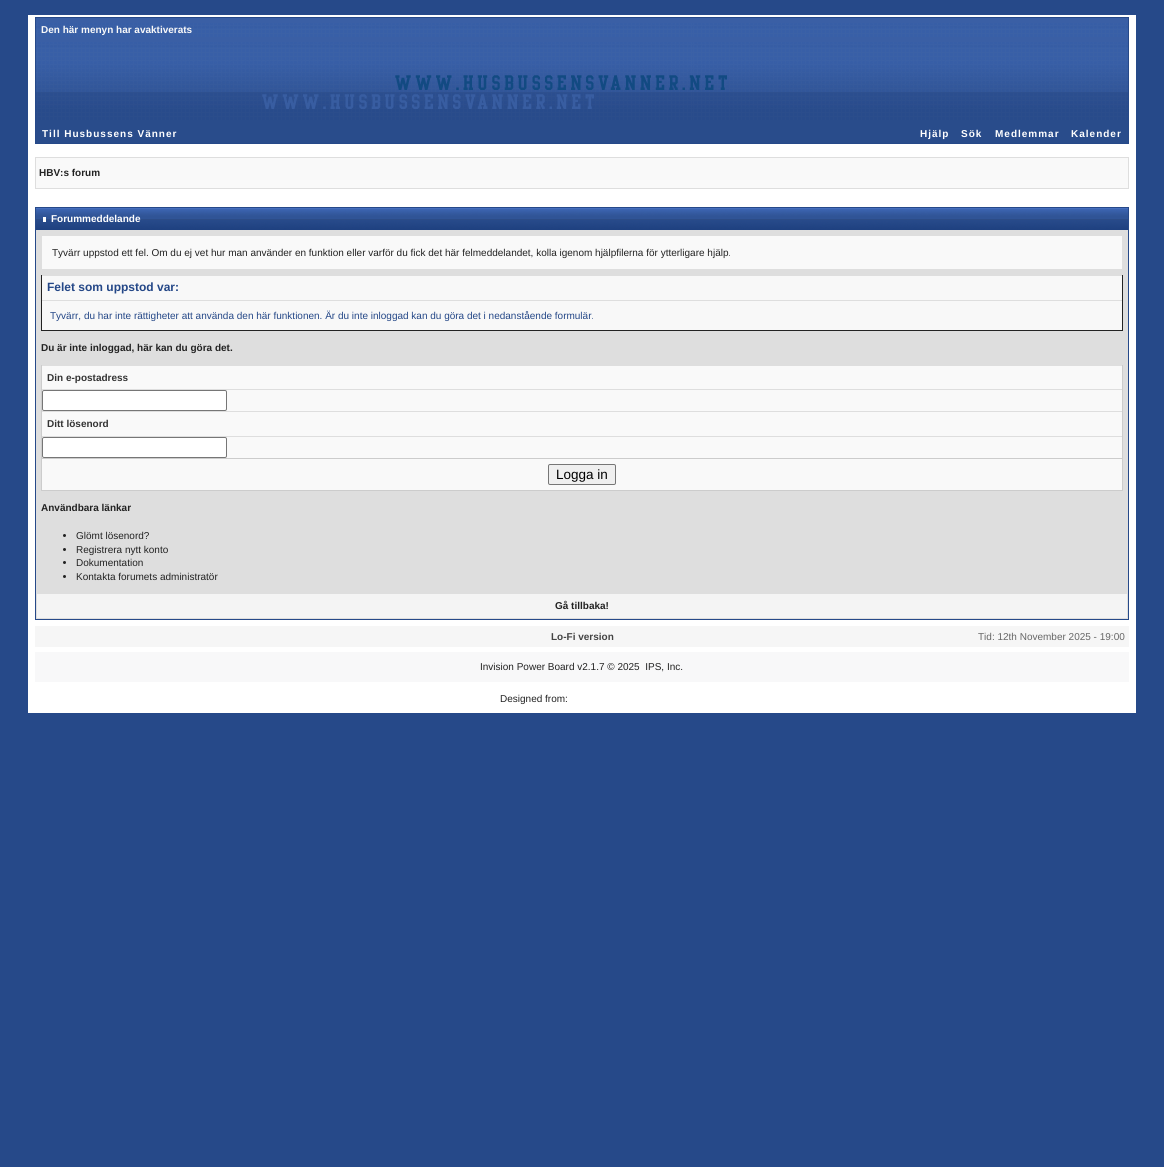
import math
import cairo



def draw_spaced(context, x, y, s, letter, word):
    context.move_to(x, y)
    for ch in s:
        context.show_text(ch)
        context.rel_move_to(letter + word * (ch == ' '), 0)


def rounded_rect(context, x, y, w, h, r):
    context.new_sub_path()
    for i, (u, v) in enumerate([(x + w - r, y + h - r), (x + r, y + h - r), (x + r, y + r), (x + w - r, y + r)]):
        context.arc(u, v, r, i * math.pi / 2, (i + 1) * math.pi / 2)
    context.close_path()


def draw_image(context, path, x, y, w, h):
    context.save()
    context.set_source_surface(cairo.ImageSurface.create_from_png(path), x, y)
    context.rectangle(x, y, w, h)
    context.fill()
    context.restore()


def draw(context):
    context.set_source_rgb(38 / 255, 73 / 255, 137 / 255)
    context.paint()
    context.set_source_rgb(1, 1, 1)
    context.rectangle(28, 15, 1108, 698)
    context.fill()
    context.set_source_rgb(58 / 255, 95 / 255, 165 / 255)
    context.rectangle(36, 18, 1092, 24)
    context.fill()
    context.rectangle(35.5, 17.5, 1093, 126)
    context.set_source_rgb(38 / 255, 73 / 255, 137 / 255)
    context.set_line_width(1)
    context.stroke()
    draw_image(context, "images/1.png", 36, 23, 1092, 14)
    draw_image(context, "images/2.png", 36, 42, 1092, 78)
    context.set_source_rgb(41 / 255, 76 / 255, 139 / 255)
    context.rectangle(36, 120, 1092, 23)
    context.fill()
    context.set_source_rgb(249 / 255, 249 / 255, 249 / 255)
    context.rectangle(35.5, 157.5, 1093, 31)
    context.fill_preserve()
    context.set_source_rgb(222 / 255, 222 / 255, 222 / 255)
    context.stroke()
    context.rectangle(36, 230, 1092, 363)
    context.fill()
    context.rectangle(35.5, 207.5, 1093, 412)
    context.set_source_rgb(38 / 255, 73 / 255, 137 / 255)
    context.stroke()
    draw_image(context, "images/3.png", 36, 208, 1092, 22)
    context.set_source_rgb(1, 1, 1)
    context.rectangle(43, 217, 3, 5)
    context.fill()
    context.set_source_rgb(249 / 255, 249 / 255, 249 / 255)
    context.rectangle(42, 236, 1080, 33)
    context.fill()
    context.set_source_rgb(248 / 255, 248 / 255, 248 / 255)
    context.rectangle(42, 276, 1080, 54)
    context.fill()
    context.set_source_rgb(34 / 255, 34 / 255, 34 / 255)
    context.rectangle(1122, 275, 1, 56)
    context.fill()
    context.rectangle(41, 330, 1082, 1)
    context.fill()
    context.rectangle(41, 275, 1, 56)
    context.fill()
    context.set_source_rgb(222 / 255, 222 / 255, 222 / 255)
    context.rectangle(42, 300, 1080, 1)
    context.fill()
    context.set_source_rgb(249 / 255, 249 / 255, 249 / 255)
    context.rectangle(42, 366, 1080, 124)
    context.fill()
    context.set_source_rgb(204 / 255, 204 / 255, 204 / 255)
    context.rectangle(1122, 365, 1, 126)
    context.fill()
    context.rectangle(41, 490, 1082, 1)
    context.fill()
    context.rectangle(41, 365, 1, 126)
    context.fill()
    context.set_source_rgb(222 / 255, 222 / 255, 222 / 255)
    context.rectangle(42, 389, 1080, 1)
    context.fill()
    context.set_source_rgb(1, 1, 1)
    rounded_rect(context, 42.5, 390.5, 184, 20, 1.5)
    context.fill_preserve()
    context.set_source_rgb(118 / 255, 118 / 255, 118 / 255)
    context.stroke()
    context.set_source_rgb(222 / 255, 222 / 255, 222 / 255)
    context.rectangle(42, 411, 1080, 1)
    context.fill()
    context.rectangle(42, 436, 1080, 1)
    context.fill()
    context.set_source_rgb(1, 1, 1)
    rounded_rect(context, 42.5, 437.5, 184, 20, 1.5)
    context.fill_preserve()
    context.set_source_rgb(118 / 255, 118 / 255, 118 / 255)
    context.stroke()
    context.set_source_rgb(204 / 255, 204 / 255, 204 / 255)
    context.rectangle(42, 458, 1080, 1)
    context.fill()
    context.set_source_rgb(239 / 255, 239 / 255, 239 / 255)
    rounded_rect(context, 548.5, 464.5, 67, 20, 1.5)
    context.fill_preserve()
    context.set_source_rgb(118 / 255, 118 / 255, 118 / 255)
    context.stroke()
    context.set_source_rgb(34 / 255, 34 / 255, 34 / 255)
    context.arc(64.5, 535.5, 1.5, 0, 2 * math.pi)
    context.fill()
    context.arc(64.5, 549.5, 1.5, 0, 2 * math.pi)
    context.fill()
    context.arc(64.5, 562.5, 1.5, 0, 2 * math.pi)
    context.fill()
    context.arc(64.5, 576.5, 1.5, 0, 2 * math.pi)
    context.fill()
    context.set_source_rgb(244 / 255, 244 / 255, 244 / 255)
    context.rectangle(36.5, 593.5, 1091, 25)
    context.fill_preserve()
    context.set_source_rgb(222 / 255, 222 / 255, 222 / 255)
    context.stroke()
    context.set_source_rgb(246 / 255, 246 / 255, 246 / 255)
    context.rectangle(35, 626, 1094, 21)
    context.fill()
    context.set_source_rgb(248 / 255, 248 / 255, 249 / 255)
    context.rectangle(35, 652, 1094, 30)
    context.fill()
    context.select_font_face("Liberation Sans", cairo.FontSlant.NORMAL, cairo.FontWeight.BOLD)
    context.set_font_size(10)
    context.set_source_rgb(249 / 255, 249 / 255, 249 / 255)
    context.move_to(41, 33)
    context.show_text("Den här menyn har avaktiverats")
    context.set_source_rgb(1, 1, 1)
    draw_spaced(context, 42, 137, "Till Husbussens Vänner", 1, 0)
    draw_spaced(context, 920, 137, "Hjälp", 1, 0)
    draw_spaced(context, 961, 137, "Sök", 1, 0)
    draw_spaced(context, 995, 137, "Medlemmar", 1, 0)
    draw_spaced(context, 1071, 137, "Kalender", 1, 0)
    context.set_source_rgb(34 / 255, 34 / 255, 34 / 255)
    context.move_to(39, 176)
    context.show_text("HBV:s forum")
    context.set_source_rgb(1, 1, 1)
    context.move_to(51, 222)
    context.show_text("Forummeddelande")
    context.select_font_face("Liberation Sans")
    context.set_source_rgb(34 / 255, 34 / 255, 34 / 255)
    context.move_to(52, 256)
    context.show_text("Tyvärr uppstod ett fel. Om du ej vet hur man använder en funktion eller varför du fick det här felmeddelandet, kolla igenom hjälpfilerna för ytterligare hjälp.")
    context.select_font_face("Liberation Sans", cairo.FontSlant.NORMAL, cairo.FontWeight.BOLD)
    context.set_font_size(12)
    context.set_source_rgb(36 / 255, 71 / 255, 135 / 255)
    context.move_to(47, 291)
    context.show_text("Felet som uppstod var:")
    context.select_font_face("Liberation Sans")
    context.set_font_size(10)
    context.move_to(50, 319)
    context.show_text("Tyvärr, du har inte rättigheter att använda den här funktionen. Är du inte inloggad kan du göra det i nedanstående formulär.")
    context.select_font_face("Liberation Sans", cairo.FontSlant.NORMAL, cairo.FontWeight.BOLD)
    context.set_source_rgb(34 / 255, 34 / 255, 34 / 255)
    context.move_to(41, 351)
    context.show_text("Du är inte inloggad, här kan du göra det.")
    context.set_source_rgb(51 / 255, 51 / 255, 51 / 255)
    context.move_to(47, 381)
    context.show_text("Din e-postadress")
    context.move_to(47, 427)
    context.show_text("Ditt lösenord")
    context.select_font_face("Liberation Sans")
    context.set_font_size(13.5)
    context.set_source_rgb(0, 0, 0)
    context.move_to(556, 479)
    context.show_text("Logga in")
    context.select_font_face("Liberation Sans", cairo.FontSlant.NORMAL, cairo.FontWeight.BOLD)
    context.set_font_size(10)
    context.set_source_rgb(34 / 255, 34 / 255, 34 / 255)
    context.move_to(41, 511)
    context.show_text("Användbara länkar")
    context.select_font_face("Liberation Sans")
    context.move_to(76, 539)
    context.show_text("Glömt lösenord?")
    context.move_to(76, 553)
    context.show_text("Registrera nytt konto")
    context.move_to(76, 566)
    context.show_text("Dokumentation")
    context.move_to(76, 580)
    context.show_text("Kontakta forumets administratör")
    context.select_font_face("Liberation Sans", cairo.FontSlant.NORMAL, cairo.FontWeight.BOLD)
    context.move_to(555, 609)
    context.show_text("Gå tillbaka!")
    context.set_source_rgb(68 / 255, 68 / 255, 68 / 255)
    context.move_to(551, 640)
    context.show_text("Lo-Fi version")
    context.select_font_face("Liberation Sans")
    context.set_source_rgb(102 / 255, 102 / 255, 102 / 255)
    context.move_to(978, 640)
    context.show_text("Tid: 12th November 2025 - 19:00")
    context.set_source_rgb(34 / 255, 34 / 255, 34 / 255)
    context.move_to(480, 670)
    context.show_text("Invision Power Board v2.1.7 © 2025  IPS, Inc.")
    context.move_to(500, 702)
    context.show_text("Designed from:")


surface = cairo.ImageSurface(cairo.Format.RGB24, 1164, 1167)
context = cairo.Context(surface)
options = cairo.FontOptions()
options.set_hint_metrics(cairo.HintMetrics.OFF)
options.set_hint_style(cairo.HintStyle.NONE)
context.set_font_options(options)
context.set_miter_limit(4)
draw(context)
surface.write_to_png("out.png")
